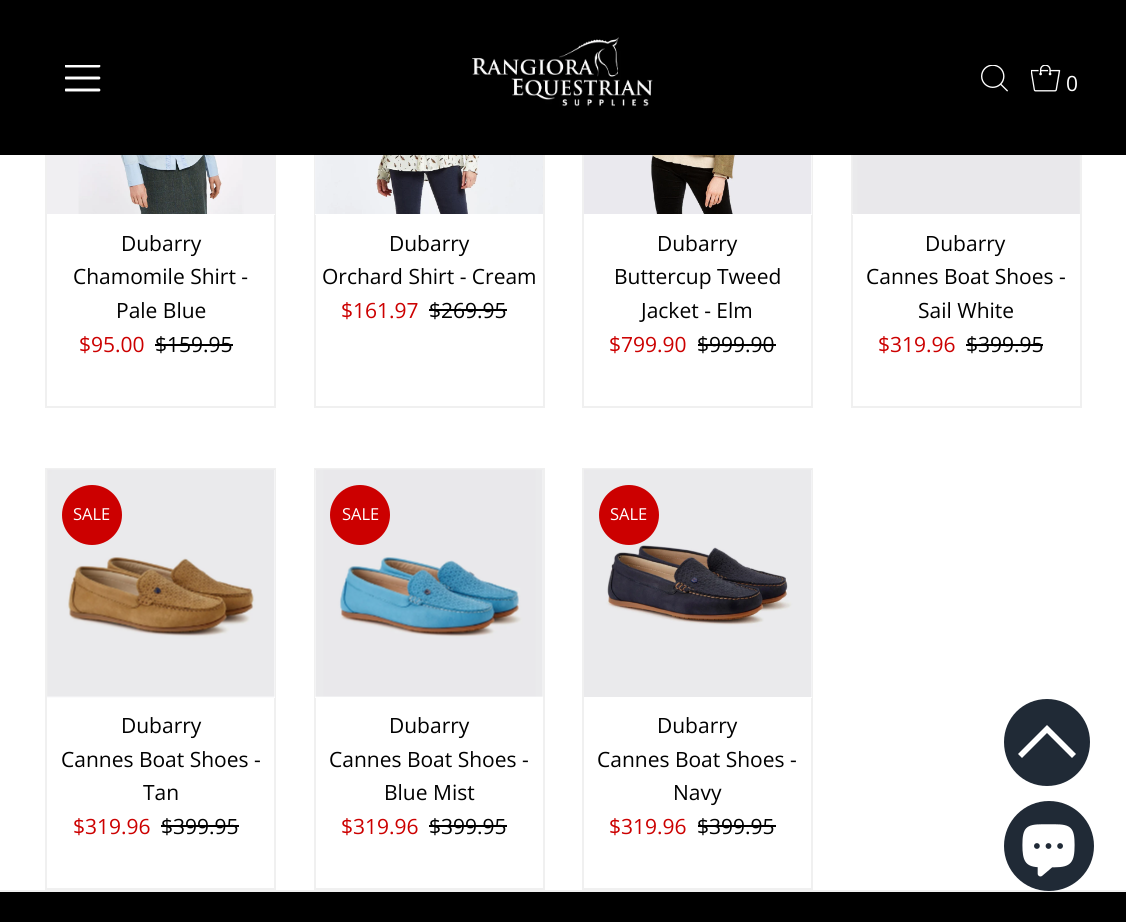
import math
import cairo



def draw_image(context, path, x, y, w, h):
    context.save()
    context.set_source_surface(cairo.ImageSurface.create_from_png(path), x, y)
    context.rectangle(x, y, w, h)
    context.fill()
    context.restore()


def draw(context):
    context.set_source_rgb(1, 1, 1)
    context.paint()
    context.rectangle(46, -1, 229, 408)
    context.set_source_rgb(240 / 255, 240 / 255, 240 / 255)
    context.stroke()
    context.rectangle(315, -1, 229, 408)
    context.stroke()
    context.rectangle(583, -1, 229, 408)
    context.stroke()
    context.rectangle(852, -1, 229, 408)
    context.stroke()
    context.set_source_rgb(0, 0, 0)
    context.rectangle(0, 0, 1126, 155)
    context.fill()
    draw_image(context, "images/1.png", 65, 65, 36, 27)
    draw_image(context, "images/2.png", 472, 37, 181, 70)
    draw_image(context, "images/3.png", 981, 65, 27, 27)
    draw_image(context, "images/4.png", 1031, 65, 30, 27)
    context.set_source_rgb(1, 1, 1)
    context.rectangle(274, 214, 1, 1)
    context.fill()
    draw_image(context, "images/5.png", 47, 155, 228, 59)
    context.set_source_rgb(0, 0, 0)
    context.rectangle(155, 344, 78, 2)
    context.fill()
    context.set_source_rgb(1, 1, 1)
    context.rectangle(315, 155, 1, 60)
    context.fill()
    draw_image(context, "images/6.png", 315, 155, 228, 59)
    context.set_source_rgb(0, 0, 0)
    context.rectangle(429, 309, 78, 2)
    context.fill()
    context.set_source_rgb(1, 1, 1)
    context.rectangle(811, 155, 1, 60)
    context.fill()
    draw_image(context, "images/7.png", 584, 155, 228, 59)
    context.set_source_rgb(0, 0, 0)
    context.rectangle(698, 344, 78, 2)
    context.fill()
    context.set_source_rgb(1, 1, 1)
    context.rectangle(852, 155, 1, 60)
    context.fill()
    draw_image(context, "images/8.png", 852, 155, 228, 59)
    context.set_source_rgb(0, 0, 0)
    context.rectangle(966, 344, 77, 2)
    context.fill()
    context.rectangle(46, 469, 229, 420)
    context.set_source_rgb(240 / 255, 240 / 255, 240 / 255)
    context.stroke()
    context.set_source_rgb(1, 1, 1)
    context.rectangle(274, 470, 1, 228)
    context.fill()
    draw_image(context, "images/9.png", 47, 469, 228, 229)
    context.set_source_rgb(204 / 255, 0, 0)
    context.arc(92, 515, 30, 0, 2 * math.pi)
    context.fill()
    context.set_source_rgb(0, 0, 0)
    context.rectangle(161, 825, 78, 2)
    context.fill()
    context.rectangle(315, 469, 229, 420)
    context.set_source_rgb(240 / 255, 240 / 255, 240 / 255)
    context.stroke()
    context.set_source_rgb(1, 1, 1)
    context.rectangle(315, 470, 1, 228)
    context.fill()
    draw_image(context, "images/10.png", 315, 469, 228, 228)
    context.set_source_rgb(204 / 255, 0, 0)
    context.arc(360, 515, 30, 0, 2 * math.pi)
    context.fill()
    context.set_source_rgb(0, 0, 0)
    context.rectangle(429, 825, 78, 2)
    context.fill()
    context.rectangle(583, 469, 229, 420)
    context.set_source_rgb(240 / 255, 240 / 255, 240 / 255)
    context.stroke()
    context.set_source_rgb(1, 1, 1)
    context.rectangle(811, 470, 1, 228)
    context.fill()
    draw_image(context, "images/11.png", 584, 469, 228, 228)
    context.set_source_rgb(204 / 255, 0, 0)
    context.arc(629, 515, 30, 0, 2 * math.pi)
    context.fill()
    context.set_source_rgb(0, 0, 0)
    context.rectangle(698, 825, 78, 2)
    context.fill()
    context.rectangle(0, 892, 1126, 30)
    context.fill()
    context.set_source_rgb(240 / 255, 240 / 255, 240 / 255)
    context.rectangle(0, 890, 1126, 2)
    context.fill()
    context.set_source_rgb(32 / 255, 42 / 255, 54 / 255)
    context.set_fill_rule(cairo.FillRule.EVEN_ODD)
    context.new_path()
    context.move_to(1047, 699)
    context.curve_to(1023, 699, 1004, 718, 1004, 742)
    context.curve_to(1004, 767, 1023, 786, 1047, 786)
    context.curve_to(1071, 786, 1090, 767, 1090, 742)
    context.curve_to(1090, 718, 1071, 699, 1047, 699)
    context.close_path()
    context.move_to(1072, 758)
    context.line_to(1047, 733)
    context.line_to(1022, 758)
    context.line_to(1018, 754)
    context.line_to(1047, 725)
    context.line_to(1076, 754)
    context.close_path()
    context.fill()
    context.arc(1049, 846, 45, 0, 2 * math.pi)
    context.fill()
    draw_image(context, "images/12.png", 1022, 824, 53, 53)
    context.select_font_face("Open Sans")
    context.set_font_size(21)
    context.set_source_rgb(1, 1, 1)
    context.move_to(1066, 91)
    context.show_text("0")
    context.set_source_rgb(0, 0, 0)
    context.move_to(121, 251)
    context.show_text("Dubarry")
    context.move_to(73, 284)
    context.show_text("Chamomile Shirt -")
    context.move_to(116, 318)
    context.show_text("Pale Blue")
    context.set_source_rgb(204 / 255, 0, 0)
    context.move_to(79, 352)
    context.show_text("$95.00")
    context.set_source_rgb(0, 0, 0)
    context.move_to(155, 352)
    context.show_text("$159.95")
    context.move_to(389, 251)
    context.show_text("Dubarry")
    context.move_to(322, 284)
    context.show_text("Orchard Shirt - Cream")
    context.set_source_rgb(204 / 255, 0, 0)
    context.move_to(341, 318)
    context.show_text("$161.97")
    context.set_source_rgb(0, 0, 0)
    context.move_to(429, 318)
    context.show_text("$269.95")
    context.move_to(657, 251)
    context.show_text("Dubarry")
    context.move_to(614, 284)
    context.show_text("Buttercup Tweed")
    context.move_to(641, 318)
    context.show_text("Jacket - Elm")
    context.set_source_rgb(204 / 255, 0, 0)
    context.move_to(609, 352)
    context.show_text("$799.90")
    context.set_source_rgb(0, 0, 0)
    context.move_to(697, 352)
    context.show_text("$999.90")
    context.move_to(925, 251)
    context.show_text("Dubarry")
    context.move_to(866, 284)
    context.show_text("Cannes Boat Shoes -")
    context.move_to(918, 318)
    context.show_text("Sail White")
    context.set_source_rgb(204 / 255, 0, 0)
    context.move_to(878, 352)
    context.show_text("$319.96")
    context.set_source_rgb(0, 0, 0)
    context.move_to(966, 352)
    context.show_text("$399.95")
    context.set_font_size(16.5)
    context.set_source_rgb(1, 1, 1)
    context.move_to(73, 520)
    context.show_text("SALE")
    context.set_font_size(21)
    context.set_source_rgb(0, 0, 0)
    context.move_to(121, 733)
    context.show_text("Dubarry")
    context.move_to(61, 767)
    context.show_text("Cannes Boat Shoes -")
    context.move_to(143, 800)
    context.show_text("Tan")
    context.set_source_rgb(204 / 255, 0, 0)
    context.move_to(73, 834)
    context.show_text("$319.96")
    context.set_source_rgb(0, 0, 0)
    context.move_to(161, 834)
    context.show_text("$399.95")
    context.set_font_size(16.5)
    context.set_source_rgb(1, 1, 1)
    context.move_to(342, 520)
    context.show_text("SALE")
    context.set_font_size(21)
    context.set_source_rgb(0, 0, 0)
    context.move_to(389, 733)
    context.show_text("Dubarry")
    context.move_to(329, 767)
    context.show_text("Cannes Boat Shoes -")
    context.move_to(384, 800)
    context.show_text("Blue Mist")
    context.set_source_rgb(204 / 255, 0, 0)
    context.move_to(341, 834)
    context.show_text("$319.96")
    context.set_source_rgb(0, 0, 0)
    context.move_to(429, 834)
    context.show_text("$399.95")
    context.set_font_size(16.5)
    context.set_source_rgb(1, 1, 1)
    context.move_to(610, 520)
    context.show_text("SALE")
    context.set_font_size(21)
    context.set_source_rgb(0, 0, 0)
    context.move_to(657, 733)
    context.show_text("Dubarry")
    context.move_to(597, 767)
    context.show_text("Cannes Boat Shoes -")
    context.move_to(673, 800)
    context.show_text("Navy")
    context.set_source_rgb(204 / 255, 0, 0)
    context.move_to(609, 834)
    context.show_text("$319.96")
    context.set_source_rgb(0, 0, 0)
    context.move_to(697, 834)
    context.show_text("$399.95")


surface = cairo.ImageSurface(cairo.Format.RGB24, 1126, 922)
context = cairo.Context(surface)
options = cairo.FontOptions()
options.set_hint_metrics(cairo.HintMetrics.OFF)
options.set_hint_style(cairo.HintStyle.NONE)
context.set_font_options(options)
context.set_miter_limit(4)
draw(context)
surface.write_to_png("out.png")
